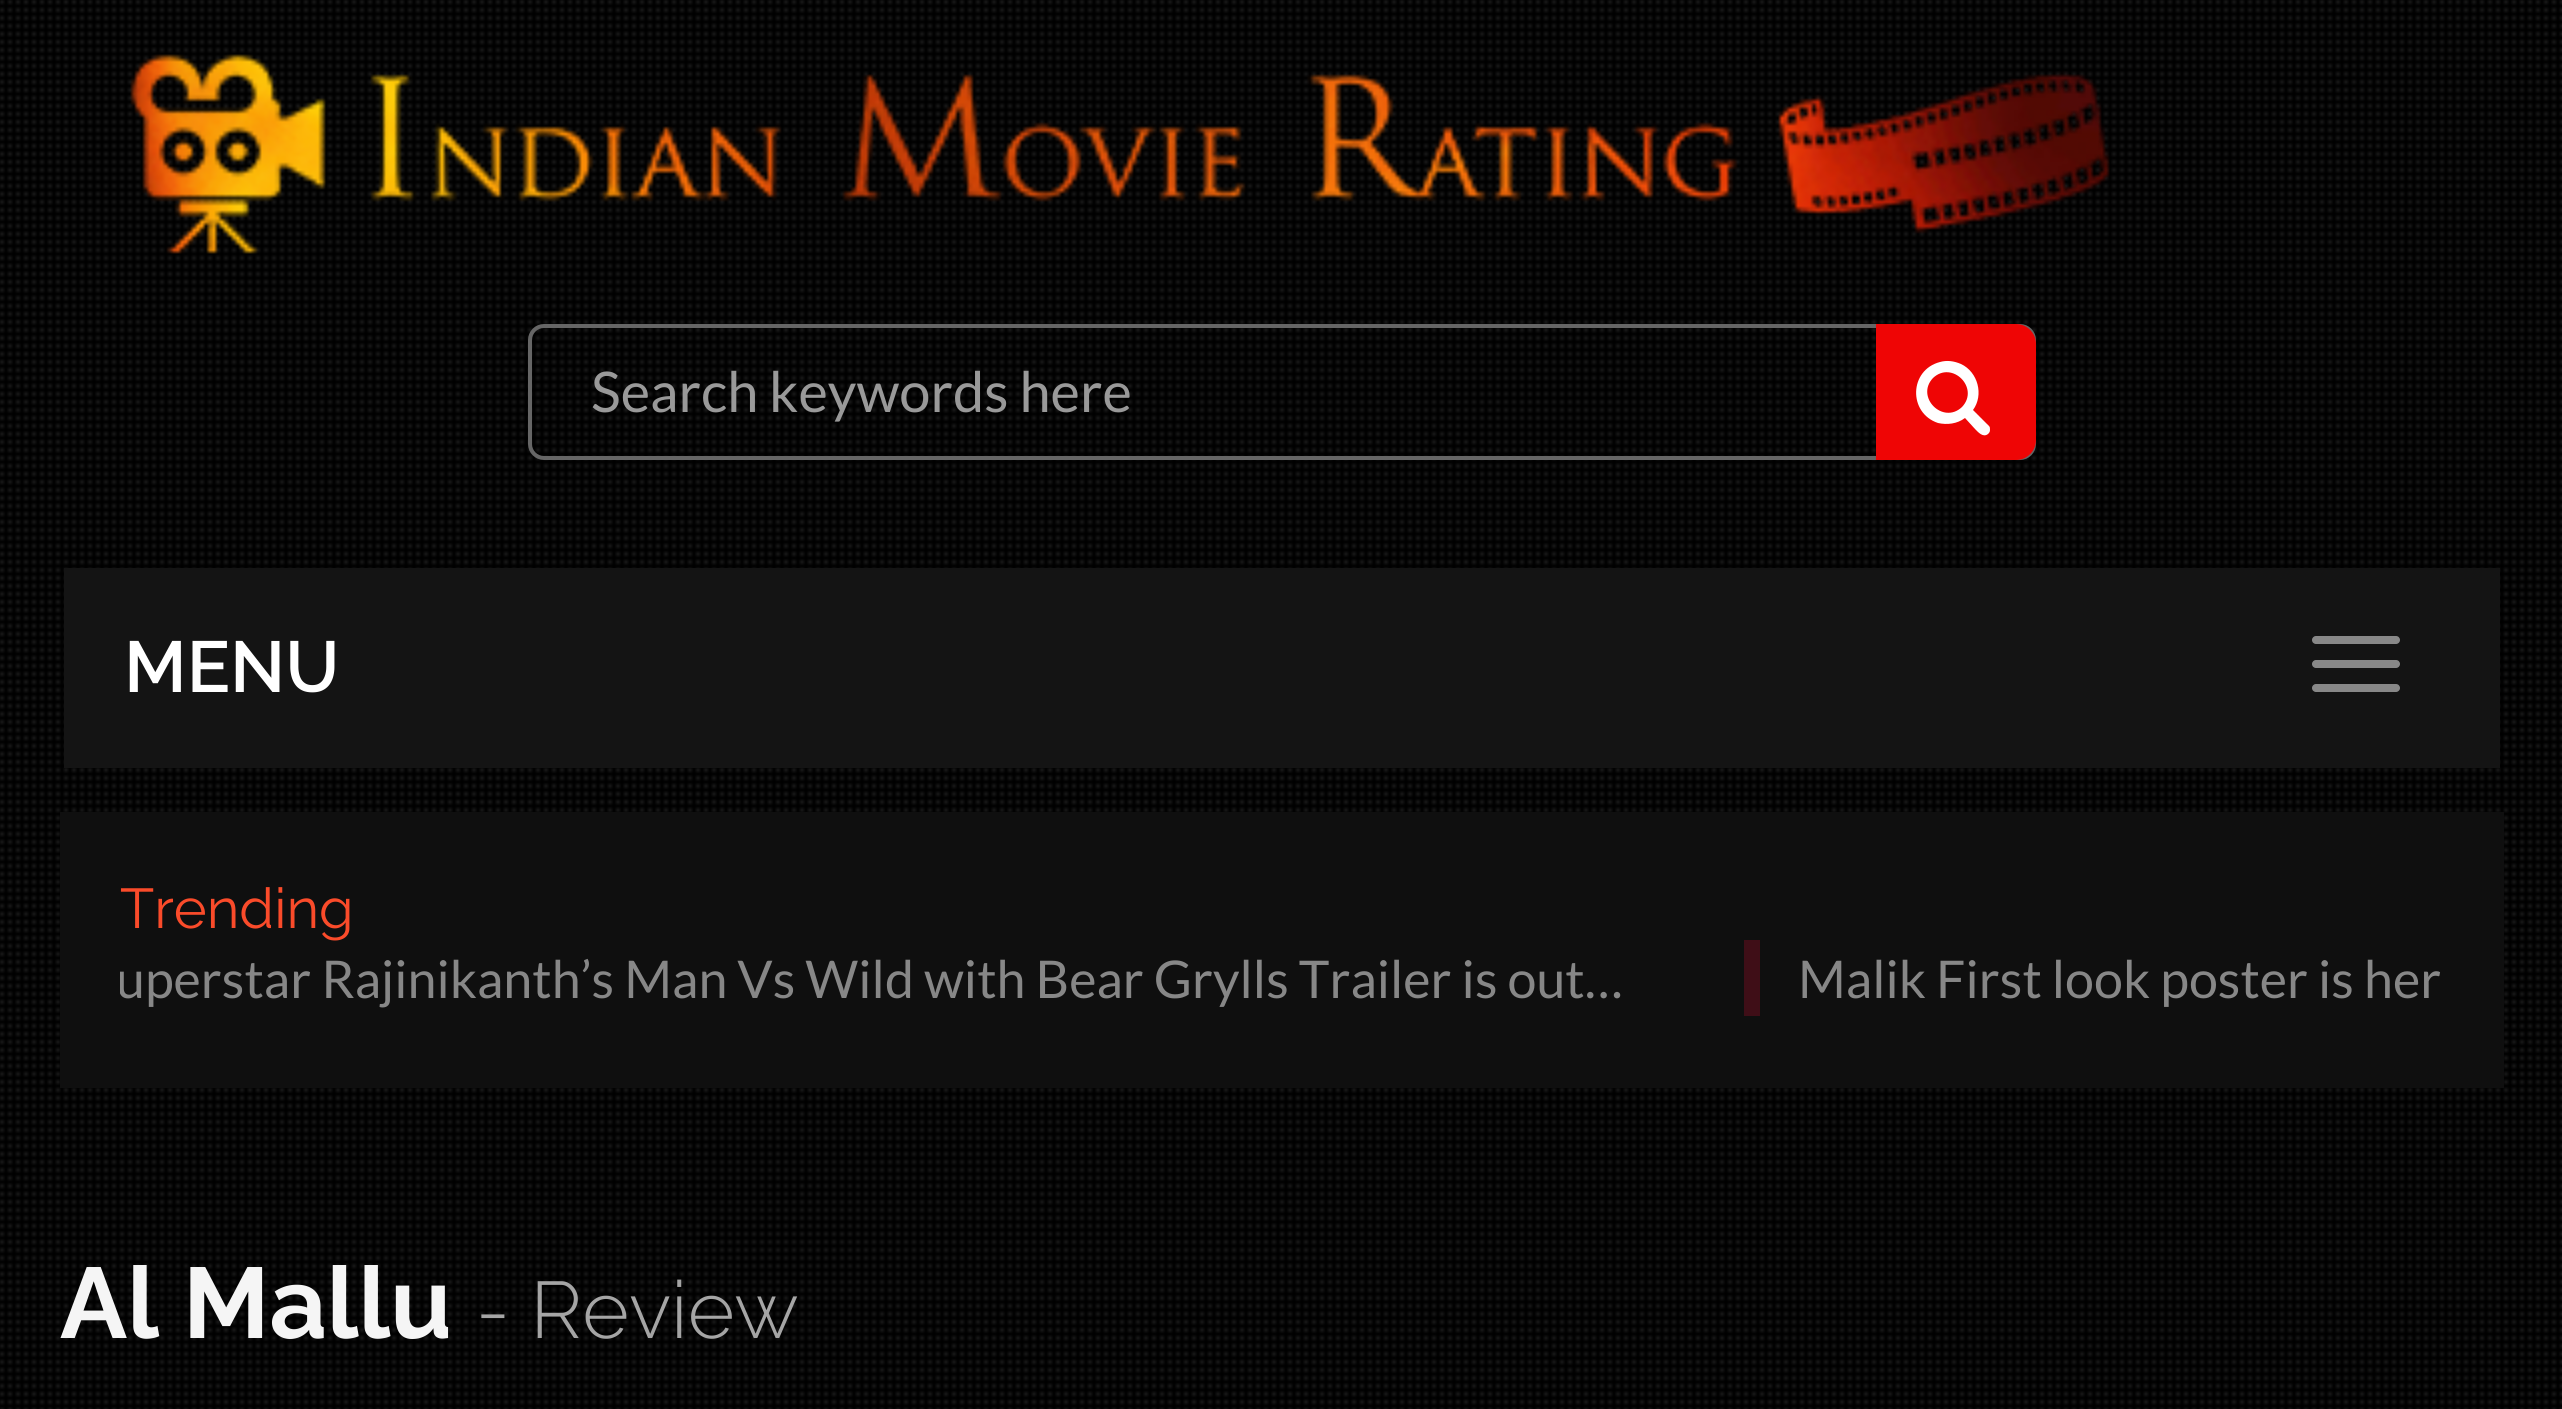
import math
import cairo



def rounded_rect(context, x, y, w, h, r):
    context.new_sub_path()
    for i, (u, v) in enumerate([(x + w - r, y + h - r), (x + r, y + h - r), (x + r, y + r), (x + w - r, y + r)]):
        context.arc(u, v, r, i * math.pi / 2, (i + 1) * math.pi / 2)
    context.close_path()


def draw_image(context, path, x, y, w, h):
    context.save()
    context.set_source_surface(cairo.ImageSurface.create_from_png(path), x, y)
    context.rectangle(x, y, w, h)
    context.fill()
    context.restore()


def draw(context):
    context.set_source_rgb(1, 1, 1)
    context.paint()
    draw_image(context, "images/1.png", 0, 0, 2562, 1409)
    draw_image(context, "images/2.png", 130, 54, 1980, 200)
    rounded_rect(context, 530, 326, 1504, 132, 14)
    context.set_source_rgb(102 / 255, 102 / 255, 102 / 255)
    context.set_line_width(4)
    context.stroke()
    context.set_source_rgb(239 / 255, 5 / 255, 5 / 255)
    context.new_path()
    context.move_to(1876, 324)
    context.line_to(2016, 324)
    context.curve_to(2027, 324, 2036, 333, 2036, 344)
    context.line_to(2036, 440)
    context.curve_to(2036, 451, 2027, 460, 2016, 460)
    context.line_to(1876, 460)
    context.close_path()
    context.fill()
    context.set_source_rgb(1, 1, 1)
    context.new_path()
    context.move_to(1962, 407)
    context.curve_to(1980, 388, 1952, 360, 1933, 378)
    context.curve_to(1915, 397, 1943, 425, 1962, 407)
    context.close_path()
    context.move_to(1990, 430)
    context.curve_to(1990, 432, 1989, 433, 1988, 434)
    context.curve_to(1983, 438, 1978, 432, 1975, 429)
    context.line_to(1965, 418)
    context.curve_to(1957, 424, 1947, 425, 1938, 423)
    context.curve_to(1908, 413, 1909, 370, 1940, 362)
    context.curve_to(1947, 360, 1954, 361, 1961, 364)
    context.curve_to(1978, 372, 1984, 395, 1973, 410)
    context.line_to(1989, 426)
    context.curve_to(1990, 427, 1990, 428, 1990, 430)
    context.close_path()
    context.fill()
    context.set_source_rgb(20 / 255, 20 / 255, 20 / 255)
    context.rectangle(64, 568, 2436, 200)
    context.fill()
    context.set_source_rgb(136 / 255, 136 / 255, 136 / 255)
    rounded_rect(context, 2312, 636, 88, 8, 4)
    context.fill()
    rounded_rect(context, 2312, 660, 88, 8, 4)
    context.fill()
    rounded_rect(context, 2312, 684, 88, 8, 4)
    context.fill()
    context.set_source_rgb(15 / 255, 15 / 255, 15 / 255)
    context.rectangle(60, 812, 2444, 276)
    context.fill()
    context.set_source_rgb(63 / 255, 14 / 255, 23 / 255)
    context.rectangle(1744, 940, 16, 76)
    context.fill()
    context.select_font_face("Lato")
    context.set_font_size(56)
    context.set_source_rgb(153 / 255, 153 / 255, 153 / 255)
    context.move_to(591, 412)
    context.show_text("Search keywords here")
    context.select_font_face("Raleway SemiBold")
    context.set_font_size(72)
    context.set_source_rgb(1, 1, 1)
    context.move_to(124, 692)
    context.show_text("MENU")
    context.select_font_face("Raleway")
    context.set_font_size(56)
    context.set_source_rgb(250 / 255, 75 / 255, 42 / 255)
    context.move_to(120, 928)
    context.show_text("Trending")
    context.save()
    context.rectangle(120, 940, 2324, 80)
    context.clip()
    context.select_font_face("Lato")
    context.set_font_size(52)
    context.set_source_rgb(135 / 255, 135 / 255, 135 / 255)
    context.move_to(116, 998)
    context.show_text("uperstar Rajinikanth’s Man Vs Wild with Bear Grylls Trailer is out…")
    context.restore()
    context.select_font_face("Lato")
    context.set_font_size(52)
    context.set_source_rgb(135 / 255, 135 / 255, 135 / 255)
    context.move_to(1798, 998)
    context.show_text("Malik First look poster is her")
    context.select_font_face("Raleway", cairo.FontSlant.NORMAL, cairo.FontWeight.BOLD)
    context.set_font_size(100)
    context.set_source_rgb(245 / 255, 245 / 255, 245 / 255)
    context.move_to(60, 1338)
    context.show_text("Al Mallu")
    context.select_font_face("Raleway Light")
    context.set_font_size(80)
    context.set_source_rgb(165 / 255, 165 / 255, 165 / 255)
    context.move_to(476, 1338)
    context.show_text("- Review")


surface = cairo.ImageSurface(cairo.Format.RGB24, 2562, 1409)
context = cairo.Context(surface)
options = cairo.FontOptions()
options.set_hint_metrics(cairo.HintMetrics.OFF)
options.set_hint_style(cairo.HintStyle.NONE)
context.set_font_options(options)
context.set_miter_limit(4)
draw(context)
surface.write_to_png("out.png")
